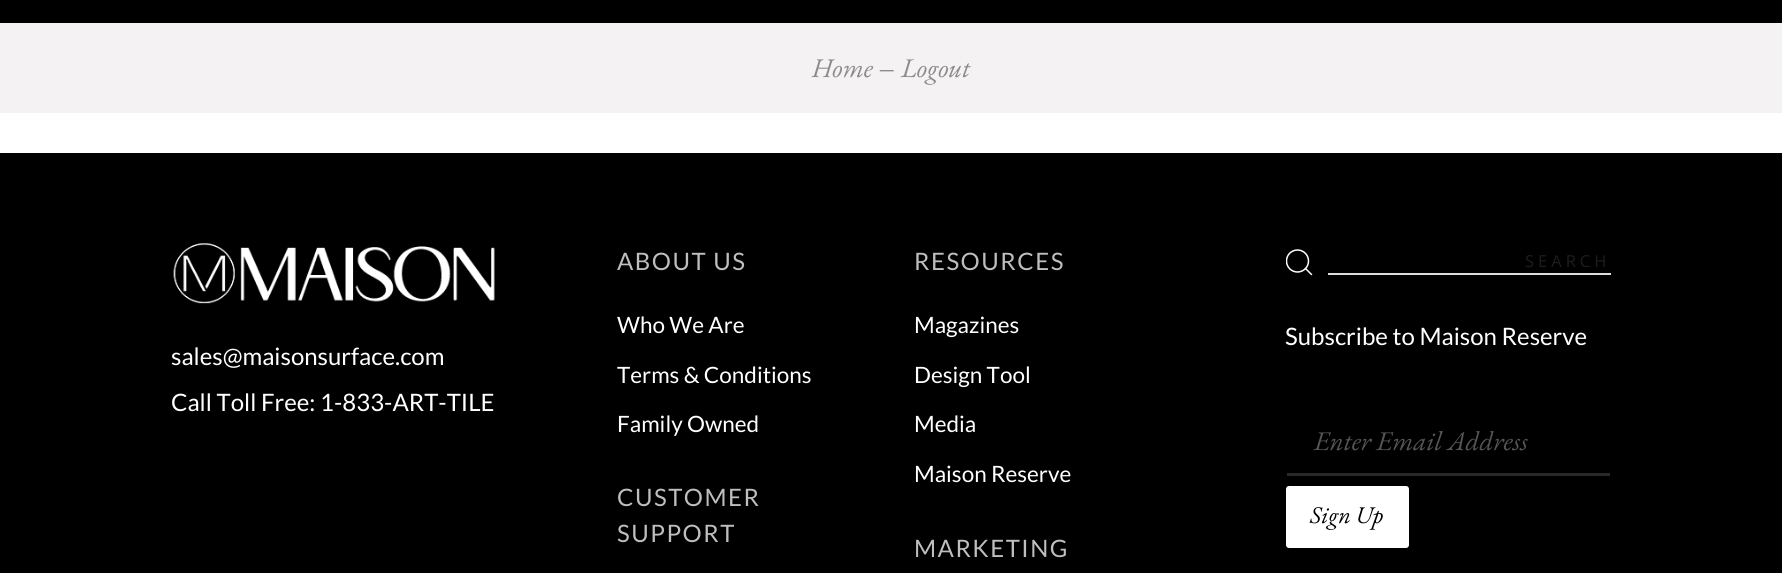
import math
import cairo



def draw_spaced(context, x, y, s, letter, word):
    context.move_to(x, y)
    for ch in s:
        context.show_text(ch)
        context.rel_move_to(letter + word * (ch == ' '), 0)


def rounded_rect(context, x, y, w, h, r):
    context.new_sub_path()
    for i, (u, v) in enumerate([(x + w - r, y + h - r), (x + r, y + h - r), (x + r, y + r), (x + w - r, y + r)]):
        context.arc(u, v, r, i * math.pi / 2, (i + 1) * math.pi / 2)
    context.close_path()


def draw_image(context, path, x, y, w, h):
    context.save()
    context.set_source_surface(cairo.ImageSurface.create_from_png(path), x, y)
    context.rectangle(x, y, w, h)
    context.fill()
    context.restore()


def draw(context):
    context.set_source_rgb(1, 1, 1)
    context.paint()
    context.set_source_rgb(0, 0, 0)
    context.rectangle(0, 0, 1782, 23)
    context.fill()
    context.set_source_rgb(244 / 255, 242 / 255, 242 / 255)
    context.rectangle(0, 23, 1782, 90)
    context.fill()
    context.set_source_rgb(0, 0, 0)
    context.rectangle(0, 153, 1782, 420)
    context.fill()
    draw_image(context, "images/1.png", 173, 243, 322, 61)
    context.save()
    context.rectangle(1286, 249, 27, 27)
    context.clip()
    context.arc(1297.5, 261, 11, 0, 2 * math.pi)
    context.set_source_rgb(1, 1, 1)
    context.set_line_width(1.5)
    context.stroke()
    context.restore()
    context.new_path()
    context.move_to(1311.5, 274.5)
    context.line_to(1305.5, 268.5)
    context.set_source_rgb(1, 1, 1)
    context.set_line_width(1.5)
    context.set_line_cap(cairo.LineCap.ROUND)
    context.set_line_join(cairo.LineJoin.ROUND)
    context.stroke()
    context.set_source_rgb(221 / 255, 221 / 255, 221 / 255)
    context.rectangle(1328, 273, 283, 2)
    context.fill()
    context.set_source_rgb(41 / 255, 41 / 255, 41 / 255)
    context.rectangle(1287, 473, 323, 3)
    context.fill()
    context.set_source_rgb(1, 1, 1)
    rounded_rect(context, 1287, 487, 121, 60, 2)
    context.fill_preserve()
    context.set_line_width(2)
    context.set_line_cap(cairo.LineCap.BUTT)
    context.set_line_join(cairo.LineJoin.MITER)
    context.stroke()
    context.select_font_face("EB Garamond", cairo.FontSlant.ITALIC)
    context.set_font_size(27)
    context.set_source_rgb(139 / 255, 139 / 255, 139 / 255)
    context.move_to(812, 77)
    context.show_text("Home")
    context.select_font_face("Liberation Serif", cairo.FontSlant.ITALIC)
    context.move_to(880, 77)
    context.show_text("‒")
    context.select_font_face("EB Garamond", cairo.FontSlant.ITALIC)
    context.move_to(901, 77)
    context.show_text("Logout")
    context.select_font_face("Lato")
    context.set_font_size(24)
    context.set_source_rgb(1, 1, 1)
    context.move_to(171, 365)
    context.show_text("sales@maisonsurface.com")
    context.move_to(171, 411)
    context.show_text("Call Toll Free: 1-833-ART-TILE")
    context.set_source_rgb(191 / 255, 189 / 255, 189 / 255)
    draw_spaced(context, 617, 270, "ABOUT US", 1.5, 0)
    context.set_font_size(22.5)
    context.set_source_rgb(1, 1, 1)
    context.move_to(617, 333)
    context.show_text("Who We Are")
    context.move_to(617, 383)
    context.show_text("Terms & Conditions")
    context.move_to(617, 432)
    context.show_text("Family Owned")
    context.set_font_size(24)
    context.set_source_rgb(191 / 255, 189 / 255, 189 / 255)
    draw_spaced(context, 617, 506, "CUSTOMER", 1.5, 0)
    draw_spaced(context, 617, 542, "SUPPORT", 1.5, 0)
    draw_spaced(context, 914, 270, "RESOURCES", 1.5, 0)
    context.set_font_size(22.5)
    context.set_source_rgb(1, 1, 1)
    context.move_to(914, 333)
    context.show_text("Magazines")
    context.move_to(914, 383)
    context.show_text("Design Tool")
    context.move_to(914, 432)
    context.show_text("Media")
    context.move_to(914, 482)
    context.show_text("Maison Reserve")
    context.set_font_size(24)
    context.set_source_rgb(191 / 255, 189 / 255, 189 / 255)
    draw_spaced(context, 914, 557, "MARKETING", 1.5, 0)
    context.select_font_face("Open Sans")
    context.set_font_size(16.5)
    context.set_source_rgb(29 / 255, 29 / 255, 29 / 255)
    draw_spaced(context, 1525, 267, "SEARCH", 4, 0)
    context.select_font_face("Lato")
    context.set_font_size(24)
    context.set_source_rgb(1, 1, 1)
    context.move_to(1285, 345)
    context.show_text("Subscribe to Maison Reserve")
    context.select_font_face("EB Garamond", cairo.FontSlant.ITALIC)
    context.set_font_size(27)
    context.set_source_rgb(85 / 255, 85 / 255, 85 / 255)
    context.move_to(1314, 450)
    context.show_text("Enter Email Address")
    context.set_font_size(24)
    context.set_source_rgb(0, 0, 0)
    context.move_to(1310, 523)
    context.show_text("Sign Up")


surface = cairo.ImageSurface(cairo.Format.RGB24, 1782, 573)
context = cairo.Context(surface)
options = cairo.FontOptions()
options.set_hint_metrics(cairo.HintMetrics.OFF)
options.set_hint_style(cairo.HintStyle.NONE)
context.set_font_options(options)
context.set_miter_limit(4)
draw(context)
surface.write_to_png("out.png")
